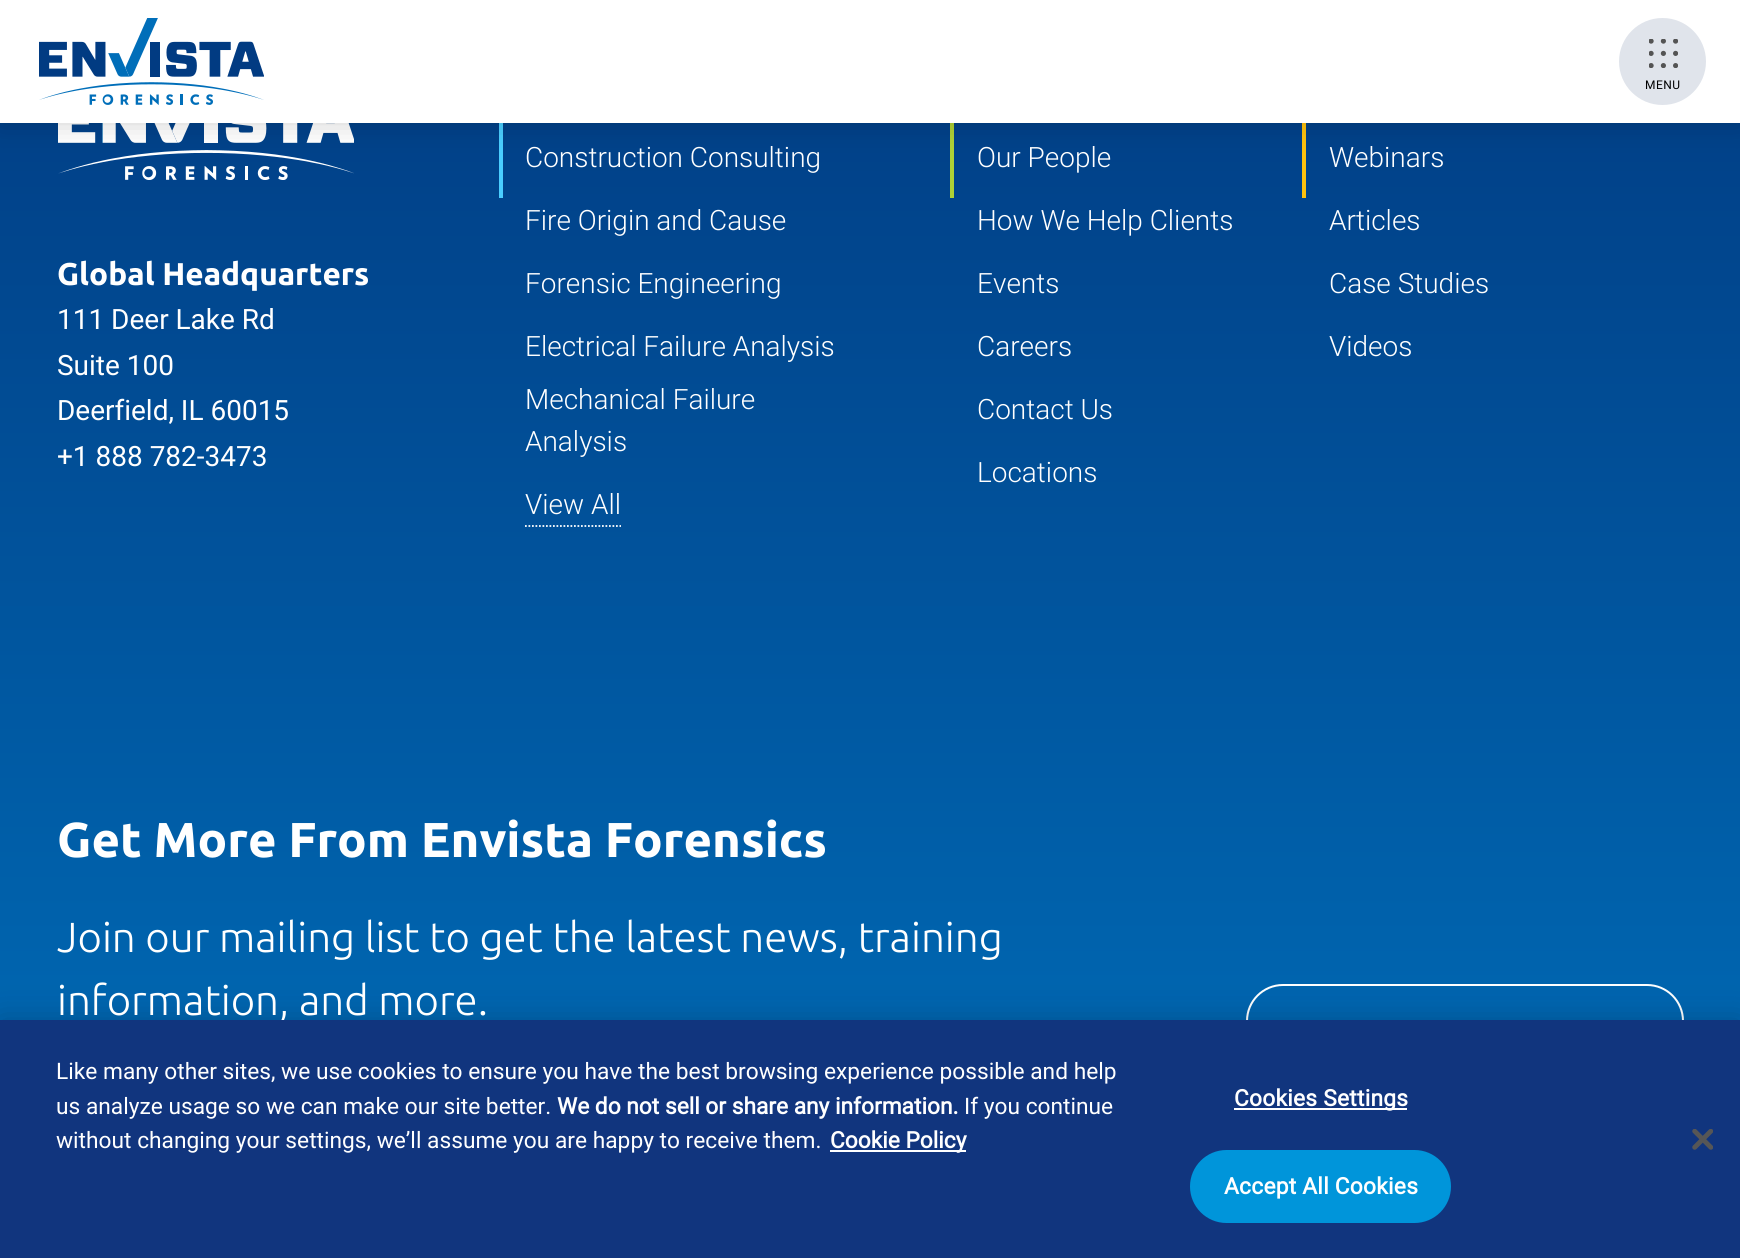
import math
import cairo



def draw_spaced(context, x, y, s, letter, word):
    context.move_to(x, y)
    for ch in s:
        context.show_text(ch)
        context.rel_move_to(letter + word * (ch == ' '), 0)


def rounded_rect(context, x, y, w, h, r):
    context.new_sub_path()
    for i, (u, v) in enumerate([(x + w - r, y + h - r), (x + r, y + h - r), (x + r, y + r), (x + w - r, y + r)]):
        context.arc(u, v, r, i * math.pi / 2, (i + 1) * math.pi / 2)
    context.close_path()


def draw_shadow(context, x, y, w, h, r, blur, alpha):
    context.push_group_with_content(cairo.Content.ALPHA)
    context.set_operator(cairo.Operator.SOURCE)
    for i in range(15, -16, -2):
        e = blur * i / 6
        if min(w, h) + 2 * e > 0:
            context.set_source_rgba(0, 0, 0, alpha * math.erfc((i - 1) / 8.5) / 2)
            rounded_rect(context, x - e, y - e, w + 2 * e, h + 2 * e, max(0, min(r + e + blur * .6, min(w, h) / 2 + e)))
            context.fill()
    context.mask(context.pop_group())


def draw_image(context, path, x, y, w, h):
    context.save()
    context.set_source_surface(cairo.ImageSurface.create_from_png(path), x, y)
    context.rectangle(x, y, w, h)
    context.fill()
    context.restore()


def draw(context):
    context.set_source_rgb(1, 1, 1)
    context.paint()
    gradient = cairo.LinearGradient(871, -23, 871, 1234)
    gradient.add_color_stop_rgba(0, 1 / 255, 59 / 255, 130 / 255, 1)
    gradient.add_color_stop_rgba(1, 0, 110 / 255, 185 / 255, 1)
    context.set_source(gradient)
    context.rectangle(0, 123, 1740, 897)
    context.fill()
    draw_image(context, "images/3.png", 58, 123, 296, 57)
    context.set_source_rgb(74 / 255, 206 / 255, 1)
    context.rectangle(499, 123, 4, 75)
    context.fill()
    context.set_source_rgb(174 / 255, 209 / 255, 54 / 255)
    context.rectangle(950, 123, 4, 75)
    context.fill()
    context.set_source_rgb(1, 194 / 255, 14 / 255)
    context.rectangle(1302, 123, 4, 75)
    context.fill()
    context.set_source_rgb(0, 0, 0)
    draw_shadow(context, 0, 0, 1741, 123, 0, 14, 0.2)
    context.set_source_rgb(1, 1, 1)
    context.rectangle(0, 0, 1740, 123)
    context.fill()
    draw_image(context, "images/1.png", 39, 18, 225, 87)
    context.set_source_rgb(224 / 255, 228 / 255, 235 / 255)
    context.arc(1662.5, 61.5, 43.5, 0, 2 * math.pi)
    context.fill()
    draw_image(context, "images/2.png", 1649, 39, 29, 29)
    context.new_path()
    context.move_to(525, 526)
    context.line_to(621, 526)
    context.set_source_rgb(1, 1, 1)
    context.set_line_width(1.8)
    context.set_dash([1.75, 1.75])
    context.stroke()
    rounded_rect(context, 1247, 985, 436, 73, 36)
    context.set_line_width(2)
    context.set_dash([])
    context.stroke()
    context.set_source_rgb(0, 0, 0)
    draw_shadow(context, 0, 1020, 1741, 238, 0, 16, 0.2)
    context.select_font_face("Roboto")
    context.set_font_size(12)
    context.set_source_rgb(0, 0, 0)
    draw_spaced(context, 1645, 89, "MENU", 0.5, 0)
    context.select_font_face("Ubuntu", cairo.FontSlant.NORMAL, cairo.FontWeight.BOLD)
    context.set_font_size(31.5)
    context.set_source_rgb(1, 1, 1)
    context.move_to(57, 285)
    context.show_text("Global Headquarters")
    context.select_font_face("Roboto")
    context.set_font_size(28)
    context.move_to(57, 329)
    context.show_text("111 Deer Lake Rd")
    context.move_to(57, 375)
    context.show_text("Suite 100")
    context.move_to(57, 420)
    context.show_text("Deerfield, IL 60015")
    context.move_to(57, 466)
    context.show_text("+1 888 782-3473")
    context.select_font_face("Roboto Light")
    context.move_to(525, 167)
    context.show_text("Construction Consulting")
    context.move_to(525, 230)
    context.show_text("Fire Origin and Cause")
    context.move_to(525, 293)
    context.show_text("Forensic Engineering")
    context.move_to(525, 356)
    context.show_text("Electrical Failure Analysis")
    context.move_to(525, 409)
    context.show_text("Mechanical Failure")
    context.move_to(525, 451)
    context.show_text("Analysis")
    context.move_to(525, 514)
    context.show_text("View All")
    context.move_to(977, 167)
    context.show_text("Our People")
    context.move_to(977, 230)
    context.show_text("How We Help Clients")
    context.move_to(977, 293)
    context.show_text("Events")
    context.move_to(977, 356)
    context.show_text("Careers")
    context.move_to(977, 419)
    context.show_text("Contact Us")
    context.move_to(977, 482)
    context.show_text("Locations")
    context.move_to(1329, 167)
    context.show_text("Webinars")
    context.move_to(1329, 230)
    context.show_text("Articles")
    context.move_to(1329, 293)
    context.show_text("Case Studies")
    context.move_to(1329, 356)
    context.show_text("Videos")
    context.select_font_face("Ubuntu", cairo.FontSlant.NORMAL, cairo.FontWeight.BOLD)
    context.set_font_size(49)
    context.move_to(57, 857)
    context.show_text("Get More From Envista Forensics")
    context.select_font_face("Ubuntu Light")
    context.set_font_size(42)
    context.move_to(57, 952)
    context.show_text("Join our mailing list to get the latest news, training")
    context.move_to(57, 1015)
    context.show_text("information, and more.")
    context.set_source_rgb(17 / 255, 53 / 255, 126 / 255)
    context.rectangle(0, 1020, 1740, 238)
    context.fill()
    context.select_font_face("Roboto")
    context.set_font_size(22.75)
    context.set_source_rgb(1, 1, 1)
    context.move_to(56, 1079)
    context.show_text("Like many other sites, we use cookies to ensure you have the best browsing experience possible and help")
    context.move_to(56, 1114)
    context.show_text("us analyze usage so we can make our site better.")
    context.select_font_face("Roboto", cairo.FontSlant.NORMAL, cairo.FontWeight.BOLD)
    context.move_to(557, 1114)
    context.show_text("We do not sell or share any information.")
    context.select_font_face("Roboto")
    context.move_to(964, 1114)
    context.show_text("If you continue")
    context.move_to(56, 1148)
    context.show_text("without changing your settings, we’ll assume you are happy to receive them.")
    context.rectangle(830, 1150, 136, 2)
    context.fill()
    context.select_font_face("Roboto", cairo.FontSlant.NORMAL, cairo.FontWeight.BOLD)
    context.move_to(830, 1148)
    context.show_text("Cookie Policy")
    context.rectangle(1234, 1108, 173, 2)
    context.fill()
    draw_spaced(context, 1234, 1106, "Cookies Settings", 0.25, 0)
    context.set_source_rgb(0, 149 / 255, 218 / 255)
    rounded_rect(context, 1191, 1151, 259, 71, 35.5)
    context.fill_preserve()
    context.stroke()
    context.set_source_rgb(1, 1, 1)
    draw_spaced(context, 1224, 1194, "Accept All Cookies", 0.25, 0)
    draw_image(context, "images/4.png", 1692, 1129, 21, 21)


surface = cairo.ImageSurface(cairo.Format.RGB24, 1740, 1258)
context = cairo.Context(surface)
options = cairo.FontOptions()
options.set_hint_metrics(cairo.HintMetrics.OFF)
options.set_hint_style(cairo.HintStyle.NONE)
context.set_font_options(options)
context.set_miter_limit(4)
draw(context)
surface.write_to_png("out.png")
